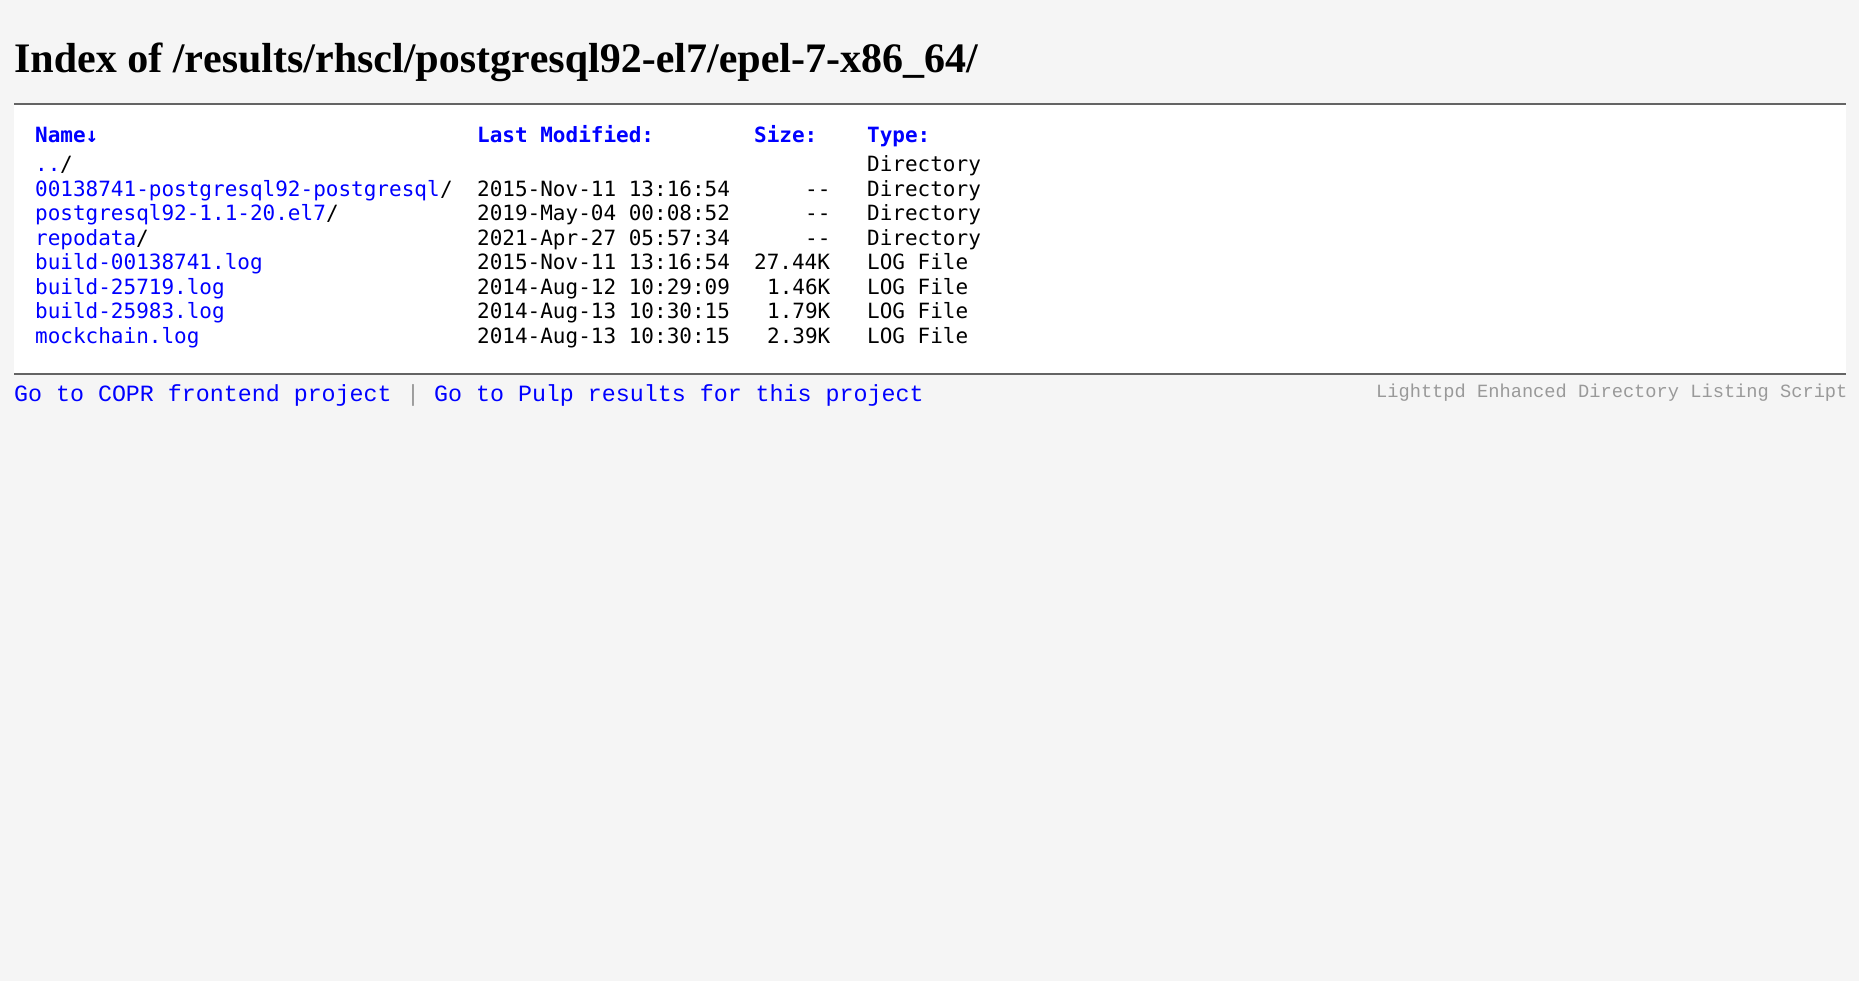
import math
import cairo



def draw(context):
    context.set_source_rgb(245 / 255, 245 / 255, 245 / 255)
    context.paint()
    context.set_source_rgb(1, 1, 1)
    context.rectangle(14, 105, 1832, 268)
    context.fill()
    context.set_source_rgb(100 / 255, 100 / 255, 100 / 255)
    context.rectangle(14, 103, 1832, 2)
    context.fill()
    context.rectangle(14, 373, 1832, 2)
    context.fill()
    context.select_font_face("Liberation Serif", cairo.FontSlant.NORMAL, cairo.FontWeight.BOLD)
    context.set_font_size(42)
    context.set_source_rgb(0, 0, 0)
    context.move_to(14, 72)
    context.show_text("Index of /results/rhscl/postgresql92-el7/epel-7-x86_64/")
    context.select_font_face("DejaVu Sans Mono", cairo.FontSlant.NORMAL, cairo.FontWeight.BOLD)
    context.set_font_size(21)
    context.set_source_rgb(0, 0, 1)
    context.move_to(35, 142)
    context.show_text("Name↓")
    context.move_to(477, 142)
    context.show_text("Last Modified:")
    context.move_to(754, 142)
    context.show_text("Size:")
    context.move_to(867, 142)
    context.show_text("Type:")
    context.select_font_face("DejaVu Sans Mono")
    context.move_to(35, 171)
    context.show_text("..")
    context.set_source_rgb(0, 0, 0)
    context.move_to(60, 171)
    context.show_text("/")
    context.move_to(867, 171)
    context.show_text("Directory")
    context.set_source_rgb(0, 0, 1)
    context.move_to(35, 196)
    context.show_text("00138741-postgresql92-postgresql")
    context.set_source_rgb(0, 0, 0)
    context.move_to(440, 196)
    context.show_text("/")
    context.move_to(477, 196)
    context.show_text("2015-Nov-11 13:16:54")
    context.move_to(805, 196)
    context.show_text("--")
    context.move_to(867, 196)
    context.show_text("Directory")
    context.set_source_rgb(0, 0, 1)
    context.move_to(35, 220)
    context.show_text("postgresql92-1.1-20.el7")
    context.set_source_rgb(0, 0, 0)
    context.move_to(326, 220)
    context.show_text("/")
    context.move_to(477, 220)
    context.show_text("2019-May-04 00:08:52")
    context.move_to(805, 220)
    context.show_text("--")
    context.move_to(867, 220)
    context.show_text("Directory")
    context.set_source_rgb(0, 0, 1)
    context.move_to(35, 245)
    context.show_text("repodata")
    context.set_source_rgb(0, 0, 0)
    context.move_to(136, 245)
    context.show_text("/")
    context.move_to(477, 245)
    context.show_text("2021-Apr-27 05:57:34")
    context.move_to(805, 245)
    context.show_text("--")
    context.move_to(867, 245)
    context.show_text("Directory")
    context.set_source_rgb(0, 0, 1)
    context.move_to(35, 269)
    context.show_text("build-00138741.log")
    context.set_source_rgb(0, 0, 0)
    context.move_to(477, 269)
    context.show_text("2015-Nov-11 13:16:54")
    context.move_to(754, 269)
    context.show_text("27.44K")
    context.move_to(867, 269)
    context.show_text("LOG File")
    context.set_source_rgb(0, 0, 1)
    context.move_to(35, 294)
    context.show_text("build-25719.log")
    context.set_source_rgb(0, 0, 0)
    context.move_to(477, 294)
    context.show_text("2014-Aug-12 10:29:09")
    context.move_to(767, 294)
    context.show_text("1.46K")
    context.move_to(867, 294)
    context.show_text("LOG File")
    context.set_source_rgb(0, 0, 1)
    context.move_to(35, 318)
    context.show_text("build-25983.log")
    context.set_source_rgb(0, 0, 0)
    context.move_to(477, 318)
    context.show_text("2014-Aug-13 10:30:15")
    context.move_to(767, 318)
    context.show_text("1.79K")
    context.move_to(867, 318)
    context.show_text("LOG File")
    context.set_source_rgb(0, 0, 1)
    context.move_to(35, 343)
    context.show_text("mockchain.log")
    context.set_source_rgb(0, 0, 0)
    context.move_to(477, 343)
    context.show_text("2014-Aug-13 10:30:15")
    context.move_to(767, 343)
    context.show_text("2.39K")
    context.move_to(867, 343)
    context.show_text("LOG File")
    context.select_font_face("Liberation Mono")
    context.set_font_size(23.3)
    context.set_source_rgb(0, 0, 1)
    context.move_to(14, 401)
    context.show_text("Go to COPR frontend project")
    context.set_source_rgb(153 / 255, 153 / 255, 153 / 255)
    context.move_to(406, 401)
    context.show_text("|")
    context.set_source_rgb(0, 0, 1)
    context.move_to(434, 401)
    context.show_text("Go to Pulp results for this project")
    context.set_font_size(18.7)
    context.set_source_rgb(153 / 255, 153 / 255, 153 / 255)
    context.move_to(1376, 397)
    context.show_text("Lighttpd Enhanced Directory Listing Script")


surface = cairo.ImageSurface(cairo.Format.RGB24, 1859, 981)
context = cairo.Context(surface)
options = cairo.FontOptions()
options.set_hint_metrics(cairo.HintMetrics.OFF)
options.set_hint_style(cairo.HintStyle.NONE)
context.set_font_options(options)
context.set_miter_limit(4)
draw(context)
surface.write_to_png("out.png")
